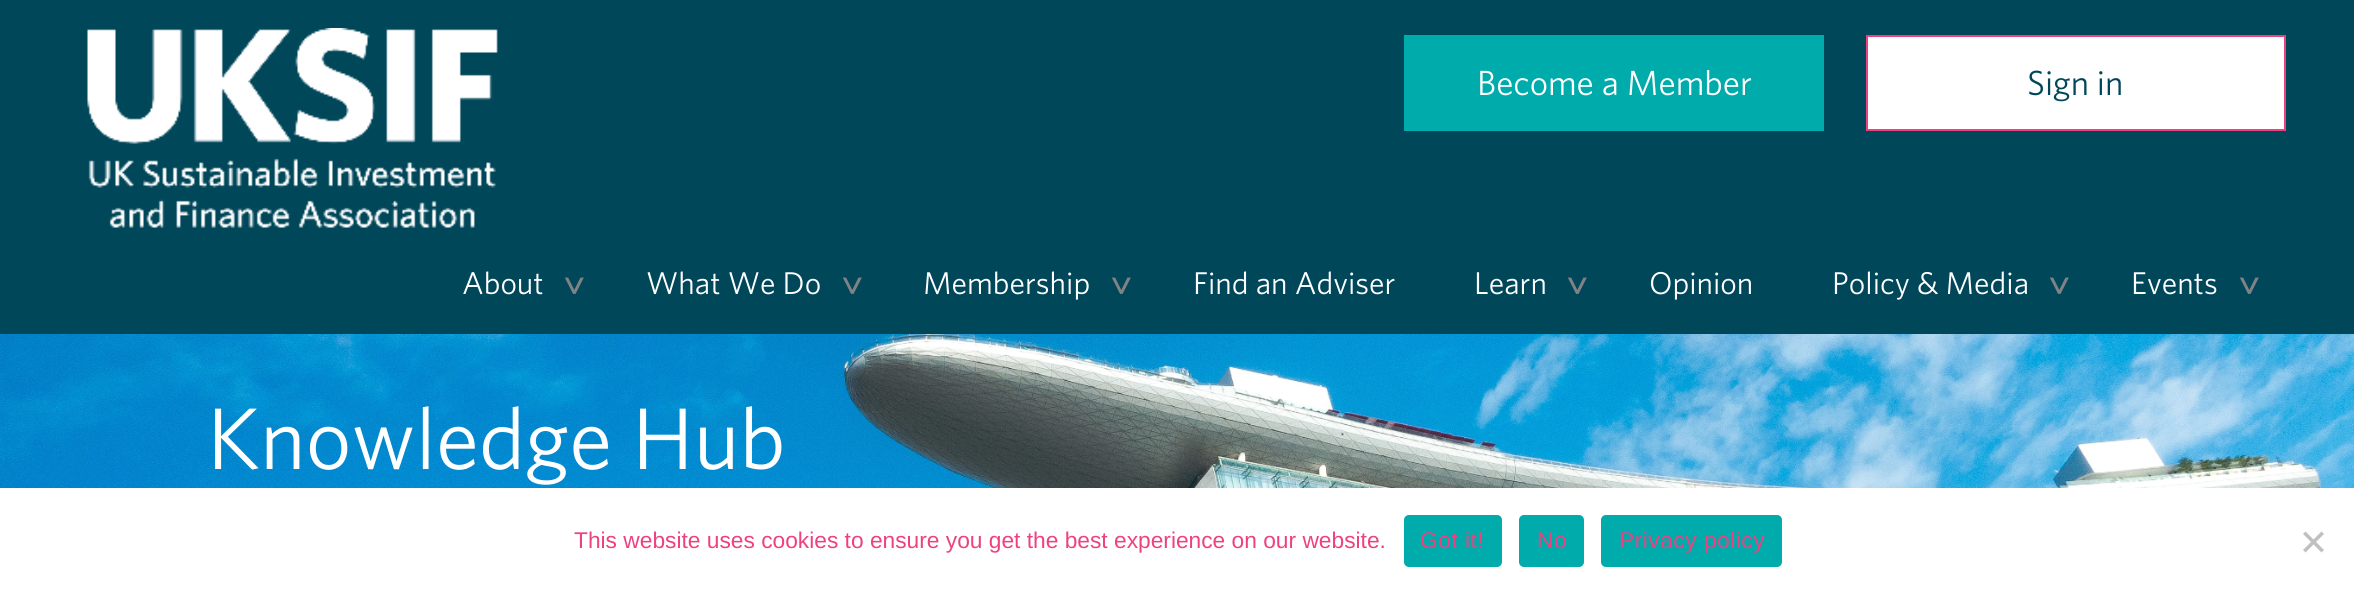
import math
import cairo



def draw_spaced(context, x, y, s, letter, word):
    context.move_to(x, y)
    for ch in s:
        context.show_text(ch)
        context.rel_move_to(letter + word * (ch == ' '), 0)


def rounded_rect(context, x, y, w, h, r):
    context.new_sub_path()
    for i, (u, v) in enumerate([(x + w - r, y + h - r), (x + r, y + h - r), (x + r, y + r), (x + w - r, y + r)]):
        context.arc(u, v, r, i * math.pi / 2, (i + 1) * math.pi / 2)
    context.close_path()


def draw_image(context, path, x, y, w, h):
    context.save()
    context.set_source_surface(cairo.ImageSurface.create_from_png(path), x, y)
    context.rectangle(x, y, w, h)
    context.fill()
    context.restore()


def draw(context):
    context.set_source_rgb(1, 1, 1)
    context.paint()
    context.set_source_rgb(0, 71 / 255, 90 / 255)
    context.rectangle(0, 0, 2354, 334)
    context.fill()
    draw_image(context, "images/1.png", 87, 28, 411, 200)
    context.set_source_rgb(0, 171 / 255, 172 / 255)
    context.rectangle(1404, 35, 420, 96)
    context.fill()
    context.set_source_rgb(1, 1, 1)
    context.rectangle(1867, 36, 418, 94)
    context.fill_preserve()
    context.set_source_rgb(238 / 255, 65 / 255, 128 / 255)
    context.stroke()
    draw_image(context, "images/2.png", 0, 334, 2354, 154)
    context.set_source_rgb(0, 171 / 255, 172 / 255)
    rounded_rect(context, 1404, 515, 98, 52, 5)
    context.fill()
    rounded_rect(context, 1519, 515, 65, 52, 5)
    context.fill()
    rounded_rect(context, 1601, 515, 181, 52, 5)
    context.fill()
    context.set_source_rgb(192 / 255, 192 / 255, 192 / 255)
    context.new_path()
    context.move_to(2321.5, 531.5)
    context.line_to(2324, 534)
    context.line_to(2305.5, 552.5)
    context.line_to(2303, 550)
    context.close_path()
    context.fill()
    context.new_path()
    context.move_to(2303, 534)
    context.line_to(2305.5, 531.5)
    context.line_to(2324, 550)
    context.line_to(2321.5, 552.5)
    context.close_path()
    context.fill()
    context.select_font_face("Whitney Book")
    context.set_font_size(35)
    context.set_source_rgb(1, 1, 1)
    context.move_to(1477, 95)
    context.show_text("Become a Member")
    context.set_source_rgb(0, 71 / 255, 90 / 255)
    context.move_to(2027, 95)
    context.show_text("Sign in")
    context.set_font_size(31.5)
    context.set_source_rgb(1, 1, 1)
    context.move_to(462, 294)
    context.show_text("About")
    context.select_font_face("Whitney Book", cairo.FontSlant.NORMAL, cairo.FontWeight.BOLD)
    context.set_font_size(35)
    context.set_source_rgb(128 / 255, 130 / 255, 133 / 255)
    context.save()
    context.translate(562, 275)
    context.rotate(90 * math.pi / 180)
    context.move_to(0, 0)
    context.show_text(">")
    context.restore()
    context.select_font_face("Whitney Book")
    context.set_font_size(31.5)
    context.set_source_rgb(1, 1, 1)
    context.move_to(646, 294)
    context.show_text("What We Do")
    context.select_font_face("Whitney Book", cairo.FontSlant.NORMAL, cairo.FontWeight.BOLD)
    context.set_font_size(35)
    context.set_source_rgb(128 / 255, 130 / 255, 133 / 255)
    context.save()
    context.translate(840, 275)
    context.rotate(90 * math.pi / 180)
    context.move_to(0, 0)
    context.show_text(">")
    context.restore()
    context.select_font_face("Whitney Book")
    context.set_font_size(31.5)
    context.set_source_rgb(1, 1, 1)
    context.move_to(923, 294)
    context.show_text("Membership")
    context.select_font_face("Whitney Book", cairo.FontSlant.NORMAL, cairo.FontWeight.BOLD)
    context.set_font_size(35)
    context.set_source_rgb(128 / 255, 130 / 255, 133 / 255)
    context.save()
    context.translate(1109, 275)
    context.rotate(90 * math.pi / 180)
    context.move_to(0, 0)
    context.show_text(">")
    context.restore()
    context.select_font_face("Whitney Book")
    context.set_font_size(31.5)
    context.set_source_rgb(1, 1, 1)
    context.move_to(1193, 294)
    context.show_text("Find an Adviser")
    context.move_to(1474, 294)
    context.show_text("Learn")
    context.select_font_face("Whitney Book", cairo.FontSlant.NORMAL, cairo.FontWeight.BOLD)
    context.set_font_size(35)
    context.set_source_rgb(128 / 255, 130 / 255, 133 / 255)
    context.save()
    context.translate(1565, 275)
    context.rotate(90 * math.pi / 180)
    context.move_to(0, 0)
    context.show_text(">")
    context.restore()
    context.select_font_face("Whitney Book")
    context.set_font_size(31.5)
    context.set_source_rgb(1, 1, 1)
    context.move_to(1649, 294)
    context.show_text("Opinion")
    context.move_to(1832, 294)
    context.show_text("Policy & Media")
    context.select_font_face("Whitney Book", cairo.FontSlant.NORMAL, cairo.FontWeight.BOLD)
    context.set_font_size(35)
    context.set_source_rgb(128 / 255, 130 / 255, 133 / 255)
    context.save()
    context.translate(2047, 275)
    context.rotate(90 * math.pi / 180)
    context.move_to(0, 0)
    context.show_text(">")
    context.restore()
    context.select_font_face("Whitney Book")
    context.set_font_size(31.5)
    context.set_source_rgb(1, 1, 1)
    context.move_to(2131, 294)
    context.show_text("Events")
    context.select_font_face("Whitney Book", cairo.FontSlant.NORMAL, cairo.FontWeight.BOLD)
    context.set_font_size(35)
    context.set_source_rgb(128 / 255, 130 / 255, 133 / 255)
    context.save()
    context.translate(2237, 275)
    context.rotate(90 * math.pi / 180)
    context.move_to(0, 0)
    context.show_text(">")
    context.restore()
    context.select_font_face("Whitney Book")
    context.set_font_size(87.5)
    context.set_source_rgb(1, 1, 1)
    context.move_to(207, 469)
    context.show_text("Knowledge Hub")
    context.select_font_face("Liberation Sans")
    context.set_font_size(22.75)
    context.set_source_rgb(238 / 255, 65 / 255, 128 / 255)
    context.move_to(574, 548)
    context.show_text("This website uses cookies to ensure you get the best experience on our website.")
    draw_spaced(context, 1420, 548, "Got it!", 0.5, 0)
    draw_spaced(context, 1537, 548, "No", 0.5, 0)
    draw_spaced(context, 1619, 548, "Privacy policy", 0.5, 0)


surface = cairo.ImageSurface(cairo.Format.RGB24, 2354, 595)
context = cairo.Context(surface)
options = cairo.FontOptions()
options.set_hint_metrics(cairo.HintMetrics.OFF)
options.set_hint_style(cairo.HintStyle.NONE)
context.set_font_options(options)
context.set_miter_limit(4)
draw(context)
surface.write_to_png("out.png")
